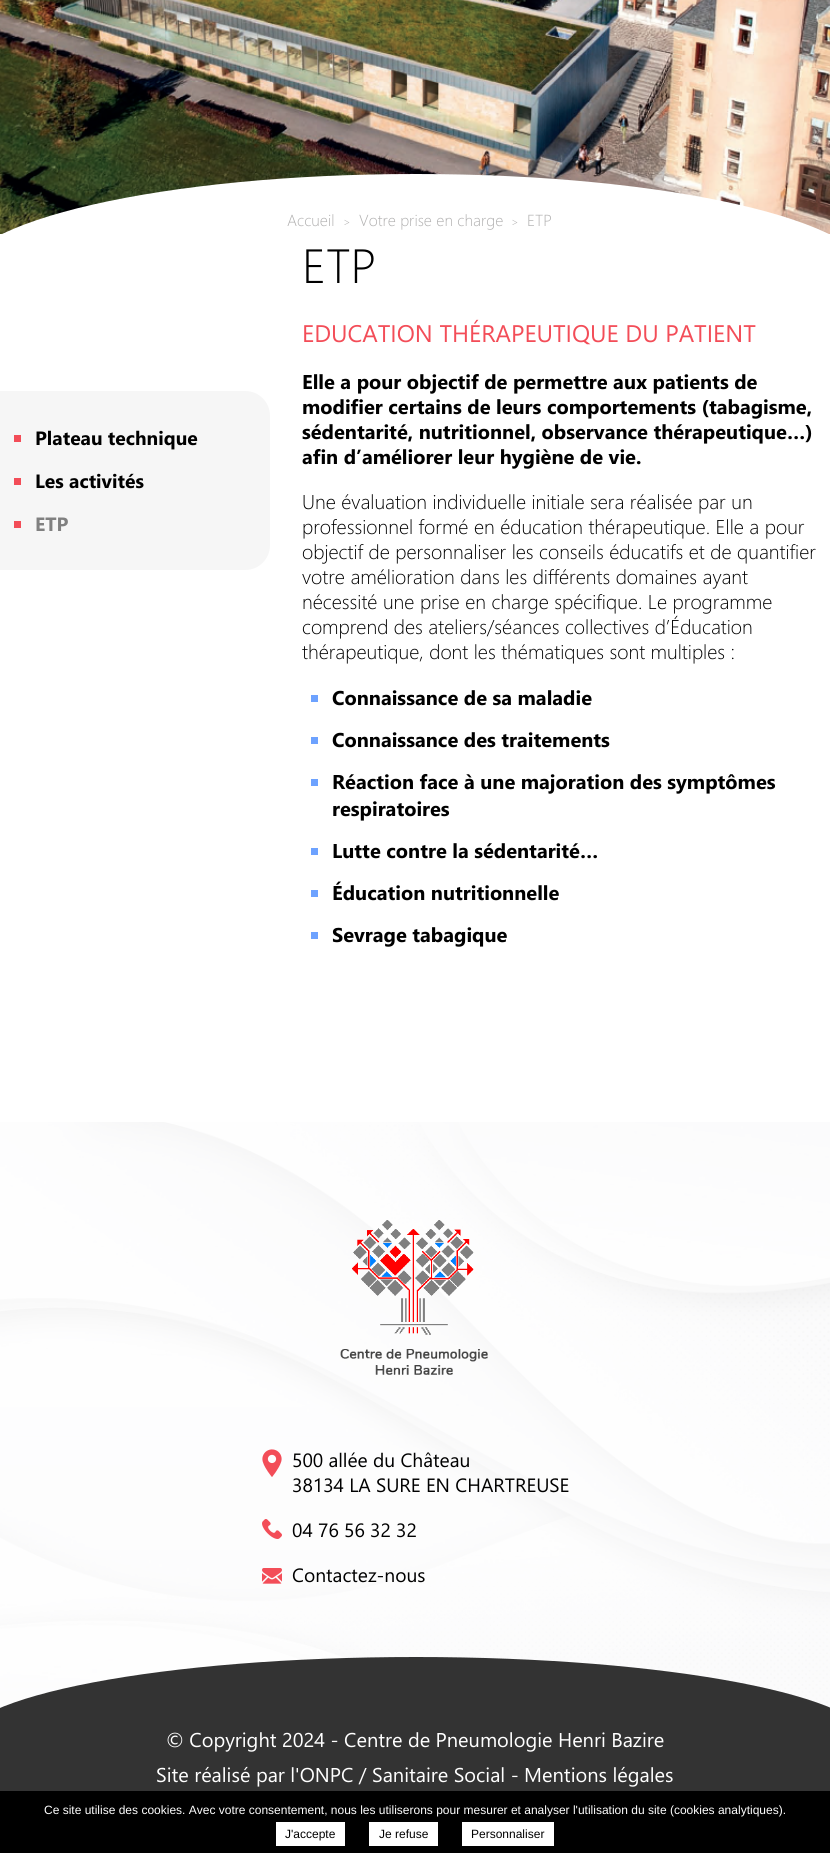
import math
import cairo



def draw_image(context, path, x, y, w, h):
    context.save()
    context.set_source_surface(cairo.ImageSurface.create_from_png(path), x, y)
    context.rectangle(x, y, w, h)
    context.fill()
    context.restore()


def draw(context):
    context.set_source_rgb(1, 1, 1)
    context.paint()
    draw_image(context, "images/1.png", 0, 0, 830, 234)
    context.set_source_rgb(1, 1, 1)
    context.new_path()
    context.move_to(416, 174)
    context.curve_to(668, 174, 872, 221, 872, 278)
    context.line_to(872, 382)
    context.line_to(-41, 382)
    context.line_to(-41, 278)
    context.curve_to(-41, 221, 163, 174, 416, 174)
    context.close_path()
    context.fill()
    context.set_source_rgb(246 / 255, 246 / 255, 246 / 255)
    context.new_path()
    context.move_to(0, 391)
    context.line_to(245, 391)
    context.curve_to(259, 391, 270, 402, 270, 416)
    context.line_to(270, 545)
    context.curve_to(270, 559, 259, 570, 245, 570)
    context.line_to(0, 570)
    context.close_path()
    context.fill()
    context.set_source_rgb(243 / 255, 77 / 255, 88 / 255)
    context.rectangle(14, 435, 7, 7)
    context.fill()
    context.rectangle(14, 478, 7, 7)
    context.fill()
    context.rectangle(14, 521, 7, 7)
    context.fill()
    context.set_source_rgb(109 / 255, 162 / 255, 1)
    context.rectangle(311, 695, 7, 7)
    context.fill()
    context.rectangle(311, 737, 7, 7)
    context.fill()
    context.rectangle(311, 779, 7, 7)
    context.fill()
    context.rectangle(311, 848, 7, 7)
    context.fill()
    context.rectangle(311, 890, 7, 7)
    context.fill()
    context.rectangle(311, 932, 7, 7)
    context.fill()
    draw_image(context, "images/2.png", 0, 1122, 830, 586)
    draw_image(context, "images/3.png", 340, 1220, 148, 155)
    draw_image(context, "images/4.png", 262, 1449, 20, 28)
    draw_image(context, "images/5.png", 262, 1519, 20, 20)
    draw_image(context, "images/6.png", 262, 1568, 20, 16)
    context.set_source_rgb(51 / 255, 51 / 255, 51 / 255)
    context.new_path()
    context.move_to(416, 1657)
    context.curve_to(668, 1657, 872, 1696, 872, 1744)
    context.line_to(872, 1831)
    context.line_to(-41, 1831)
    context.line_to(-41, 1744)
    context.curve_to(-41, 1696, 163, 1657, 416, 1657)
    context.close_path()
    context.fill()
    context.set_source_rgb(0, 0, 0)
    context.rectangle(0, 1791, 830, 62)
    context.fill()
    context.set_source_rgb(1, 1, 1)
    context.rectangle(276, 1822, 69, 24)
    context.fill()
    context.rectangle(369, 1822, 69, 24)
    context.fill()
    context.rectangle(462, 1822, 92, 24)
    context.fill()
    context.select_font_face("Segoe UI Light")
    context.set_font_size(16)
    context.set_source_rgb(176 / 255, 175 / 255, 175 / 255)
    context.move_to(287, 226)
    context.show_text("Accueil")
    context.set_font_size(12)
    context.move_to(343, 226)
    context.show_text(">")
    context.set_font_size(16)
    context.move_to(359, 226)
    context.show_text("Votre prise en charge")
    context.set_font_size(12)
    context.move_to(511, 226)
    context.show_text(">")
    context.set_font_size(16)
    context.move_to(527, 226)
    context.show_text("ETP")
    context.select_font_face("Segoe UI", cairo.FontSlant.NORMAL, cairo.FontWeight.BOLD)
    context.set_font_size(19.25)
    context.set_source_rgb(0, 0, 0)
    context.move_to(35, 445)
    context.show_text("Plateau technique")
    context.move_to(35, 488)
    context.show_text("Les activités")
    context.set_source_rgb(128 / 255, 128 / 255, 128 / 255)
    context.move_to(35, 531)
    context.show_text("ETP")
    context.select_font_face("Segoe UI Light")
    context.set_font_size(48)
    context.set_source_rgb(0, 0, 0)
    context.move_to(302, 283)
    context.show_text("ETP")
    context.select_font_face("Segoe UI")
    context.set_font_size(24)
    context.set_source_rgb(243 / 255, 77 / 255, 88 / 255)
    context.move_to(302, 342)
    context.show_text("EDUCATION THÉRAPEUTIQUE DU PATIENT")
    context.select_font_face("Segoe UI", cairo.FontSlant.NORMAL, cairo.FontWeight.BOLD)
    context.set_font_size(20)
    context.set_source_rgb(0, 0, 0)
    context.move_to(302, 389)
    context.show_text("Elle a pour objectif de permettre aux patients de")
    context.move_to(302, 414)
    context.show_text("modifier certains de leurs comportements (tabagisme,")
    context.move_to(302, 439)
    context.show_text("sédentarité, nutritionnel, observance thérapeutique…)")
    context.move_to(302, 464)
    context.show_text("afin d’améliorer leur hygiène de vie.")
    context.select_font_face("Segoe UI Light")
    context.move_to(302, 509)
    context.show_text("Une évaluation individuelle initiale sera réalisée par un")
    context.move_to(302, 534)
    context.show_text("professionnel formé en éducation thérapeutique. Elle a pour")
    context.move_to(302, 559)
    context.show_text("objectif de personnaliser les conseils éducatifs et de quantifier")
    context.move_to(302, 584)
    context.show_text("votre amélioration dans les différents domaines ayant")
    context.move_to(302, 609)
    context.show_text("nécessité une prise en charge spécifique. Le programme")
    context.move_to(302, 634)
    context.show_text("comprend des ateliers/séances collectives d’Éducation")
    context.move_to(302, 659)
    context.show_text("thérapeutique, dont les thématiques sont multiples :")
    context.select_font_face("Segoe UI", cairo.FontSlant.NORMAL, cairo.FontWeight.BOLD)
    context.move_to(332, 705)
    context.show_text("Connaissance de sa maladie")
    context.move_to(332, 747)
    context.show_text("Connaissance des traitements")
    context.move_to(332, 789)
    context.show_text("Réaction face à une majoration des symptômes")
    context.move_to(332, 816)
    context.show_text("respiratoires")
    context.move_to(332, 858)
    context.show_text("Lutte contre la sédentarité…")
    context.move_to(332, 900)
    context.show_text("Éducation nutritionnelle")
    context.move_to(332, 942)
    context.show_text("Sevrage tabagique")
    context.select_font_face("Segoe UI")
    context.set_font_size(19.25)
    context.move_to(292, 1467)
    context.show_text("500 allée du Château")
    context.move_to(292, 1492)
    context.show_text("38134 LA SURE EN CHARTREUSE")
    context.move_to(292, 1537)
    context.show_text("04 76 56 32 32")
    context.move_to(292, 1582)
    context.show_text("Contactez-nous")
    context.set_font_size(20)
    context.set_source_rgb(1, 1, 1)
    context.move_to(166, 1747)
    context.show_text("© Copyright 2024 - Centre de Pneumologie Henri Bazire")
    context.move_to(156, 1782)
    context.show_text("Site réalisé par l'ONPC / Sanitaire Social - Mentions légales")
    context.select_font_face("Liberation Sans")
    context.set_font_size(12)
    context.move_to(44, 1814)
    context.show_text("Ce site utilise des cookies. Avec votre consentement, nous les utiliserons pour mesurer et analyser l'utilisation du site (cookies analytiques).")
    context.set_source_rgb(0, 0, 0)
    context.move_to(285, 1838)
    context.show_text("J'accepte")
    context.move_to(379, 1838)
    context.show_text("Je refuse")
    context.move_to(471, 1838)
    context.show_text("Personnaliser")


surface = cairo.ImageSurface(cairo.Format.RGB24, 830, 1853)
context = cairo.Context(surface)
options = cairo.FontOptions()
options.set_hint_metrics(cairo.HintMetrics.OFF)
options.set_hint_style(cairo.HintStyle.NONE)
context.set_font_options(options)
context.set_miter_limit(4)
draw(context)
surface.write_to_png("out.png")
